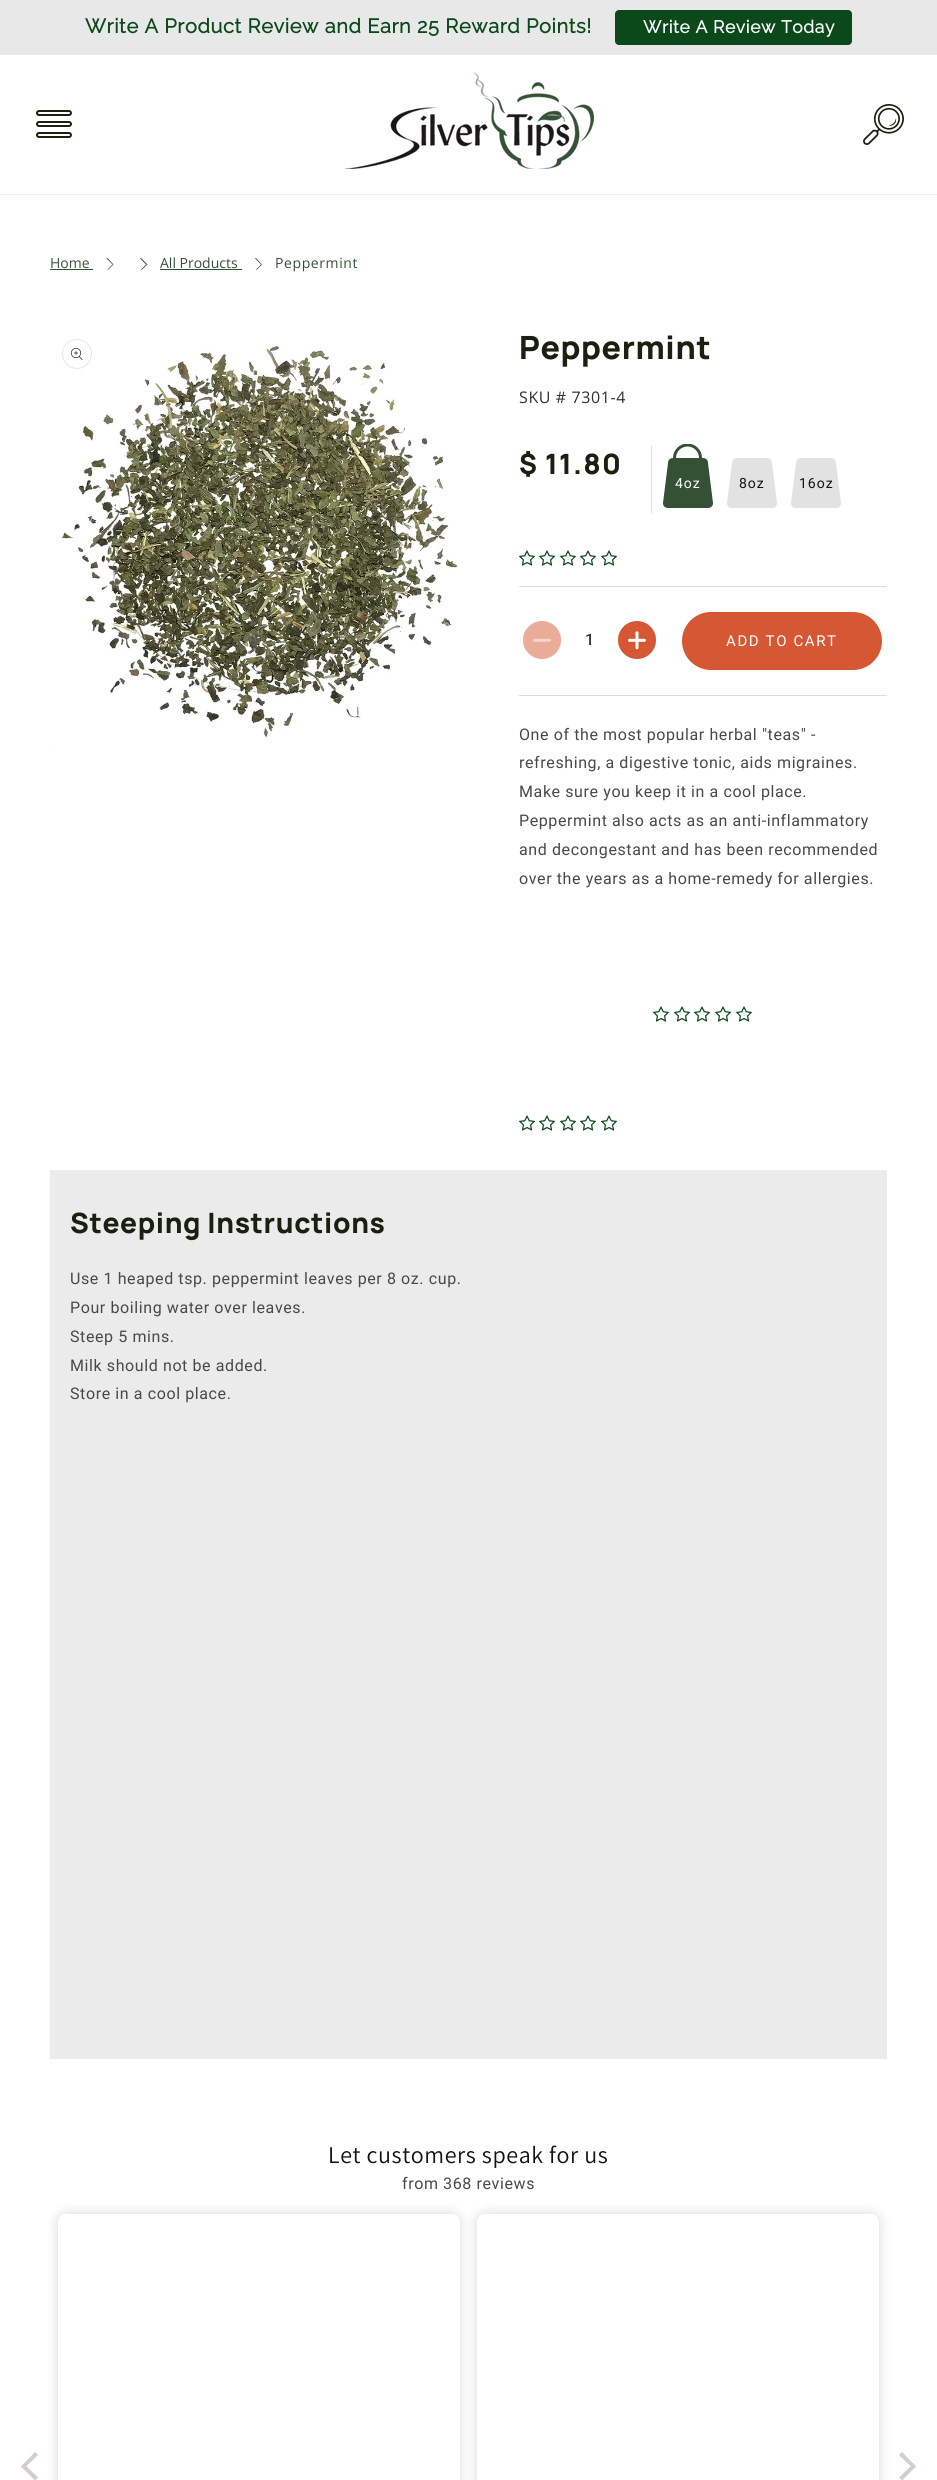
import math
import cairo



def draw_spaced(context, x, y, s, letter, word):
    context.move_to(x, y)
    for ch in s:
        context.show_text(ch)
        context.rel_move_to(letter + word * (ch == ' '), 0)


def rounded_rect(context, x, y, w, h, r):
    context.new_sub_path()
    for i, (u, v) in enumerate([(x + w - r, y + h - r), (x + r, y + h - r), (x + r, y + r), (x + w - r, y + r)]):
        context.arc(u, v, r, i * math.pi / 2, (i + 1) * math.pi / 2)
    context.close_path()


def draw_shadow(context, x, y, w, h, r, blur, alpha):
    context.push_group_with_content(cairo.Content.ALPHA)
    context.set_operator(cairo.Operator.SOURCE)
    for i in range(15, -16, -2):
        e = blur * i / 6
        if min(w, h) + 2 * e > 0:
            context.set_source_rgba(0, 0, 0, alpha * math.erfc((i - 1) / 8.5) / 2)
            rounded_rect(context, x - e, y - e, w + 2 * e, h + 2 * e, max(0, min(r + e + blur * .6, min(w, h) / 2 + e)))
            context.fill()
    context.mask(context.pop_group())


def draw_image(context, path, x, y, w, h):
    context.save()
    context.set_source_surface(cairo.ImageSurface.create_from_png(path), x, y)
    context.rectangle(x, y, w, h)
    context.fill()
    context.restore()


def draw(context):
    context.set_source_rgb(1, 1, 1)
    context.paint()
    context.set_source_rgb(232 / 255, 232 / 255, 232 / 255)
    context.rectangle(0, 0, 937, 55)
    context.fill()
    context.set_source_rgb(11 / 255, 72 / 255, 26 / 255)
    rounded_rect(context, 615, 10, 237, 35, 4)
    context.fill()
    context.set_source_rgb(236 / 255, 236 / 255, 236 / 255)
    context.rectangle(0, 194, 937, 1)
    context.fill()
    rounded_rect(context, 37, 111, 34, 4, 2)
    context.set_source_rgb(26 / 255, 32 / 255, 15 / 255)
    context.stroke()
    rounded_rect(context, 37, 133, 34, 4, 2)
    context.stroke()
    rounded_rect(context, 37, 122, 34, 4, 2)
    context.stroke()
    draw_image(context, "images/1.png", 344, 72, 250, 97)
    draw_image(context, "images/2.png", 863, 104, 41, 41)
    context.set_source_rgb(53 / 255, 81 / 255, 53 / 255)
    context.rectangle(50, 269, 43, 1)
    context.fill()
    context.set_source_rgb(77 / 255, 77 / 255, 77 / 255)
    context.new_path()
    context.move_to(107.5, 258)
    context.line_to(113.5, 264.5)
    context.line_to(112.5, 264.5)
    context.line_to(106.5, 258.5)
    context.close_path()
    context.fill()
    context.set_source_rgba(18 / 255, 18 / 255, 18 / 255, 0.75)
    context.new_path()
    context.move_to(113.5, 264.5)
    context.line_to(108, 270)
    context.line_to(107.5, 269.5)
    context.line_to(112.5, 264.5)
    context.close_path()
    context.fill()
    context.set_source_rgb(77 / 255, 77 / 255, 77 / 255)
    context.new_path()
    context.move_to(141, 258)
    context.line_to(147.5, 264.5)
    context.line_to(146, 264.5)
    context.line_to(140, 258.5)
    context.close_path()
    context.fill()
    context.set_source_rgba(18 / 255, 18 / 255, 18 / 255, 0.75)
    context.new_path()
    context.move_to(147.5, 264.5)
    context.line_to(141.5, 270)
    context.line_to(141, 269.5)
    context.line_to(146, 264.5)
    context.close_path()
    context.fill()
    context.set_source_rgb(53 / 255, 81 / 255, 53 / 255)
    context.rectangle(160, 269, 82, 1)
    context.fill()
    context.set_source_rgb(77 / 255, 77 / 255, 77 / 255)
    context.new_path()
    context.move_to(256, 258)
    context.line_to(262, 264.5)
    context.line_to(261, 264.5)
    context.line_to(255, 258.5)
    context.close_path()
    context.fill()
    context.new_path()
    context.move_to(262, 264.5)
    context.line_to(256.5, 270)
    context.line_to(256, 269.5)
    context.line_to(261, 264.5)
    context.close_path()
    context.fill()
    draw_image(context, "images/4.png", 51, 346, 407, 400)
    context.arc(77, 354, 14.5, 0, 2 * math.pi)
    context.set_source_rgb(231 / 255, 231 / 255, 231 / 255)
    context.set_line_width(1)
    context.stroke()
    draw_image(context, "images/3.png", 71, 348, 12, 12)
    context.set_source_rgb(226 / 255, 226 / 255, 226 / 255)
    rounded_rect(context, 651, 445, 1, 69, 0.5)
    context.fill()
    context.save()
    context.rectangle(663, 444, 50, 64)
    context.clip()
    context.set_source_rgb(53 / 255, 81 / 255, 53 / 255)
    context.arc(687.5, 458, 14.5, 0, 2 * math.pi)
    context.fill()
    context.restore()
    context.set_source_rgb(1, 1, 1)
    context.arc(687.5, 458, 11.5, 0, 2 * math.pi)
    context.fill()
    context.set_source_rgb(53 / 255, 81 / 255, 53 / 255)
    context.new_path()
    context.move_to(673, 458)
    context.line_to(703, 458)
    context.curve_to(706, 458, 708, 460, 708, 463)
    context.line_to(713, 503)
    context.curve_to(713, 506, 711, 508, 708, 508)
    context.line_to(668, 508)
    context.curve_to(665, 508, 663, 506, 663, 503)
    context.line_to(668, 463)
    context.curve_to(668, 460, 670, 458, 673, 458)
    context.close_path()
    context.fill()
    context.set_source_rgb(226 / 255, 226 / 255, 226 / 255)
    context.new_path()
    context.move_to(737, 458)
    context.line_to(767, 458)
    context.curve_to(770, 458, 772, 460, 772, 463)
    context.line_to(777, 503)
    context.curve_to(777, 506, 775, 508, 772, 508)
    context.line_to(732, 508)
    context.curve_to(729, 508, 727, 506, 727, 503)
    context.line_to(732, 463)
    context.curve_to(732, 460, 734, 458, 737, 458)
    context.close_path()
    context.fill()
    context.new_path()
    context.move_to(801, 458)
    context.line_to(831, 458)
    context.curve_to(834, 458, 836, 460, 836, 463)
    context.line_to(841, 503)
    context.curve_to(841, 506, 839, 508, 836, 508)
    context.line_to(796, 508)
    context.curve_to(793, 508, 791, 506, 791, 503)
    context.line_to(796, 463)
    context.curve_to(796, 460, 798, 458, 801, 458)
    context.close_path()
    context.fill()
    draw_image(context, "images/5.png", 519, 550, 16, 16)
    draw_image(context, "images/5.png", 539, 550, 16, 16)
    draw_image(context, "images/5.png", 560, 550, 16, 16)
    draw_image(context, "images/5.png", 580, 550, 16, 16)
    draw_image(context, "images/5.png", 601, 550, 16, 16)
    context.set_source_rgb(220 / 255, 220 / 255, 220 / 255)
    context.rectangle(519, 586, 368, 1)
    context.fill()
    context.rectangle(519, 695, 368, 1)
    context.fill()
    draw_image(context, "images/6.png", 523, 621, 38, 38)
    draw_image(context, "images/7.png", 618, 621, 38, 38)
    context.set_source_rgb(214 / 255, 87 / 255, 51 / 255)
    rounded_rect(context, 682, 612, 200, 58, 29)
    context.fill()
    draw_image(context, "images/5.png", 653, 1006, 16, 16)
    draw_image(context, "images/5.png", 674, 1006, 16, 16)
    draw_image(context, "images/5.png", 694, 1006, 16, 16)
    draw_image(context, "images/5.png", 715, 1006, 16, 16)
    draw_image(context, "images/5.png", 736, 1006, 16, 16)
    draw_image(context, "images/5.png", 519, 1115, 16, 16)
    draw_image(context, "images/5.png", 539, 1115, 16, 16)
    draw_image(context, "images/5.png", 560, 1115, 16, 16)
    draw_image(context, "images/5.png", 580, 1115, 16, 16)
    draw_image(context, "images/5.png", 601, 1115, 16, 16)
    context.set_source_rgb(235 / 255, 235 / 255, 235 / 255)
    context.rectangle(50, 1170, 837, 889)
    context.fill()
    context.set_source_rgb(0, 0, 0)
    draw_shadow(context, 58, 2214, 402, 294, 8, 6.5, 0.15)
    context.set_source_rgb(1, 1, 1)
    rounded_rect(context, 58, 2214, 402, 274, 8)
    context.fill()
    context.set_source_rgb(0, 0, 0)
    draw_shadow(context, 477, 2214, 402, 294, 8, 6.5, 0.15)
    context.set_source_rgb(1, 1, 1)
    rounded_rect(context, 477, 2214, 402, 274, 8)
    context.fill()
    context.set_source_rgb(211 / 255, 205 / 255, 205 / 255)
    context.new_path()
    context.move_to(21, 2466.5)
    context.line_to(35, 2452)
    context.line_to(38, 2455)
    context.line_to(23.5, 2469)
    context.close_path()
    context.fill()
    context.new_path()
    context.move_to(21, 2466.5)
    context.line_to(23.5, 2463.5)
    context.line_to(38, 2477.5)
    context.line_to(35, 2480.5)
    context.close_path()
    context.fill()
    context.new_path()
    context.move_to(899, 2455)
    context.line_to(902, 2452)
    context.line_to(916, 2466.5)
    context.line_to(913.5, 2469)
    context.close_path()
    context.fill()
    context.new_path()
    context.move_to(899, 2477.5)
    context.line_to(913.5, 2463.5)
    context.line_to(916, 2466.5)
    context.line_to(902, 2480.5)
    context.close_path()
    context.fill()
    context.select_font_face("Raleway", cairo.FontSlant.NORMAL, cairo.FontWeight.BOLD)
    context.set_font_size(20)
    context.set_source_rgb(11 / 255, 72 / 255, 26 / 255)
    draw_spaced(context, 85, 33, "Write A Product Review and Earn 25 Reward Points!", 0.6, 0)
    context.set_font_size(17.5)
    context.set_source_rgb(1, 1, 1)
    draw_spaced(context, 643, 33, "Write A Review Today", 0.6, 0)
    context.select_font_face("Open Sans")
    context.set_font_size(14)
    context.set_source_rgb(53 / 255, 81 / 255, 53 / 255)
    context.move_to(50, 268)
    context.show_text("Home")
    context.move_to(160, 268)
    context.show_text("All Products")
    draw_spaced(context, 275, 268, "Peppermint", 0.6, 0)
    context.select_font_face("Manrope ExtraBold")
    context.set_font_size(32)
    context.set_source_rgb(26 / 255, 32 / 255, 15 / 255)
    draw_spaced(context, 519, 359, "Peppermint", 0.6, 0)
    context.select_font_face("Open Sans")
    context.set_font_size(16)
    context.set_source_rgb(48 / 255, 48 / 255, 48 / 255)
    draw_spaced(context, 519, 403, "SKU # 7301-4", 0.6, 0)
    context.select_font_face("Manrope ExtraBold")
    context.set_font_size(28)
    context.set_source_rgb(26 / 255, 32 / 255, 15 / 255)
    draw_spaced(context, 519, 474, "$ 11.80", 1.25, 0)
    context.select_font_face("Roboto")
    context.set_font_size(14)
    context.set_source_rgb(1, 1, 1)
    draw_spaced(context, 675, 488, "4oz", 1, 0)
    context.set_source_rgb(18 / 255, 18 / 255, 18 / 255)
    draw_spaced(context, 739, 488, "8oz", 1, 0)
    draw_spaced(context, 799, 488, "16oz", 1, 0)
    context.select_font_face("Roboto Medium")
    context.set_font_size(16)
    context.set_source_rgb(54 / 255, 54 / 255, 54 / 255)
    context.move_to(585, 645)
    context.show_text("1")
    context.select_font_face("Roboto")
    context.set_font_size(15)
    context.set_source_rgb(1, 1, 1)
    draw_spaced(context, 726, 646, "ADD TO CART", 1.6, 0)
    context.set_font_size(16)
    context.set_source_rgb(72 / 255, 72 / 255, 72 / 255)
    draw_spaced(context, 519, 740, "One of the most popular herbal \"teas\" -", 0.6, 0)
    draw_spaced(context, 519, 768, "refreshing, a digestive tonic, aids migraines.", 0.6, 0)
    draw_spaced(context, 519, 797, "Make sure you keep it in a cool place.", 0.6, 0)
    draw_spaced(context, 519, 826, "Peppermint also acts as an anti-inflammatory", 0.6, 0)
    draw_spaced(context, 519, 855, "and decongestant and has been recommended", 0.6, 0)
    draw_spaced(context, 519, 884, "over the years as a home-remedy for allergies.", 0.6, 0)
    context.select_font_face("Manrope ExtraBold")
    context.set_font_size(28)
    context.set_source_rgb(26 / 255, 32 / 255, 15 / 255)
    draw_spaced(context, 70, 1233, "Steeping Instructions", 0.6, 0)
    context.select_font_face("Roboto")
    context.set_font_size(16)
    context.set_source_rgb(72 / 255, 72 / 255, 72 / 255)
    draw_spaced(context, 70, 1284, "Use 1 heaped tsp. peppermint leaves per 8 oz. cup.", 0.6, 0)
    draw_spaced(context, 70, 1313, "Pour boiling water over leaves.", 0.6, 0)
    draw_spaced(context, 70, 1342, "Steep 5 mins.", 0.6, 0)
    draw_spaced(context, 70, 1371, "Milk should not be added.", 0.6, 0)
    draw_spaced(context, 70, 1399, "Store in a cool place.", 0.6, 0)
    context.select_font_face("Assistant")
    context.set_font_size(24)
    context.set_source_rgb(18 / 255, 18 / 255, 18 / 255)
    draw_spaced(context, 328, 2163, "Let customers speak for us", 0.6, 0)
    context.select_font_face("Roboto")
    context.set_font_size(16)
    context.set_source_rgb(72 / 255, 72 / 255, 72 / 255)
    draw_spaced(context, 402, 2189, "from 368 reviews", 0.6, 0)


surface = cairo.ImageSurface(cairo.Format.RGB24, 937, 2480)
context = cairo.Context(surface)
options = cairo.FontOptions()
options.set_hint_metrics(cairo.HintMetrics.OFF)
options.set_hint_style(cairo.HintStyle.NONE)
context.set_font_options(options)
context.set_miter_limit(4)
draw(context)
surface.write_to_png("out.png")
